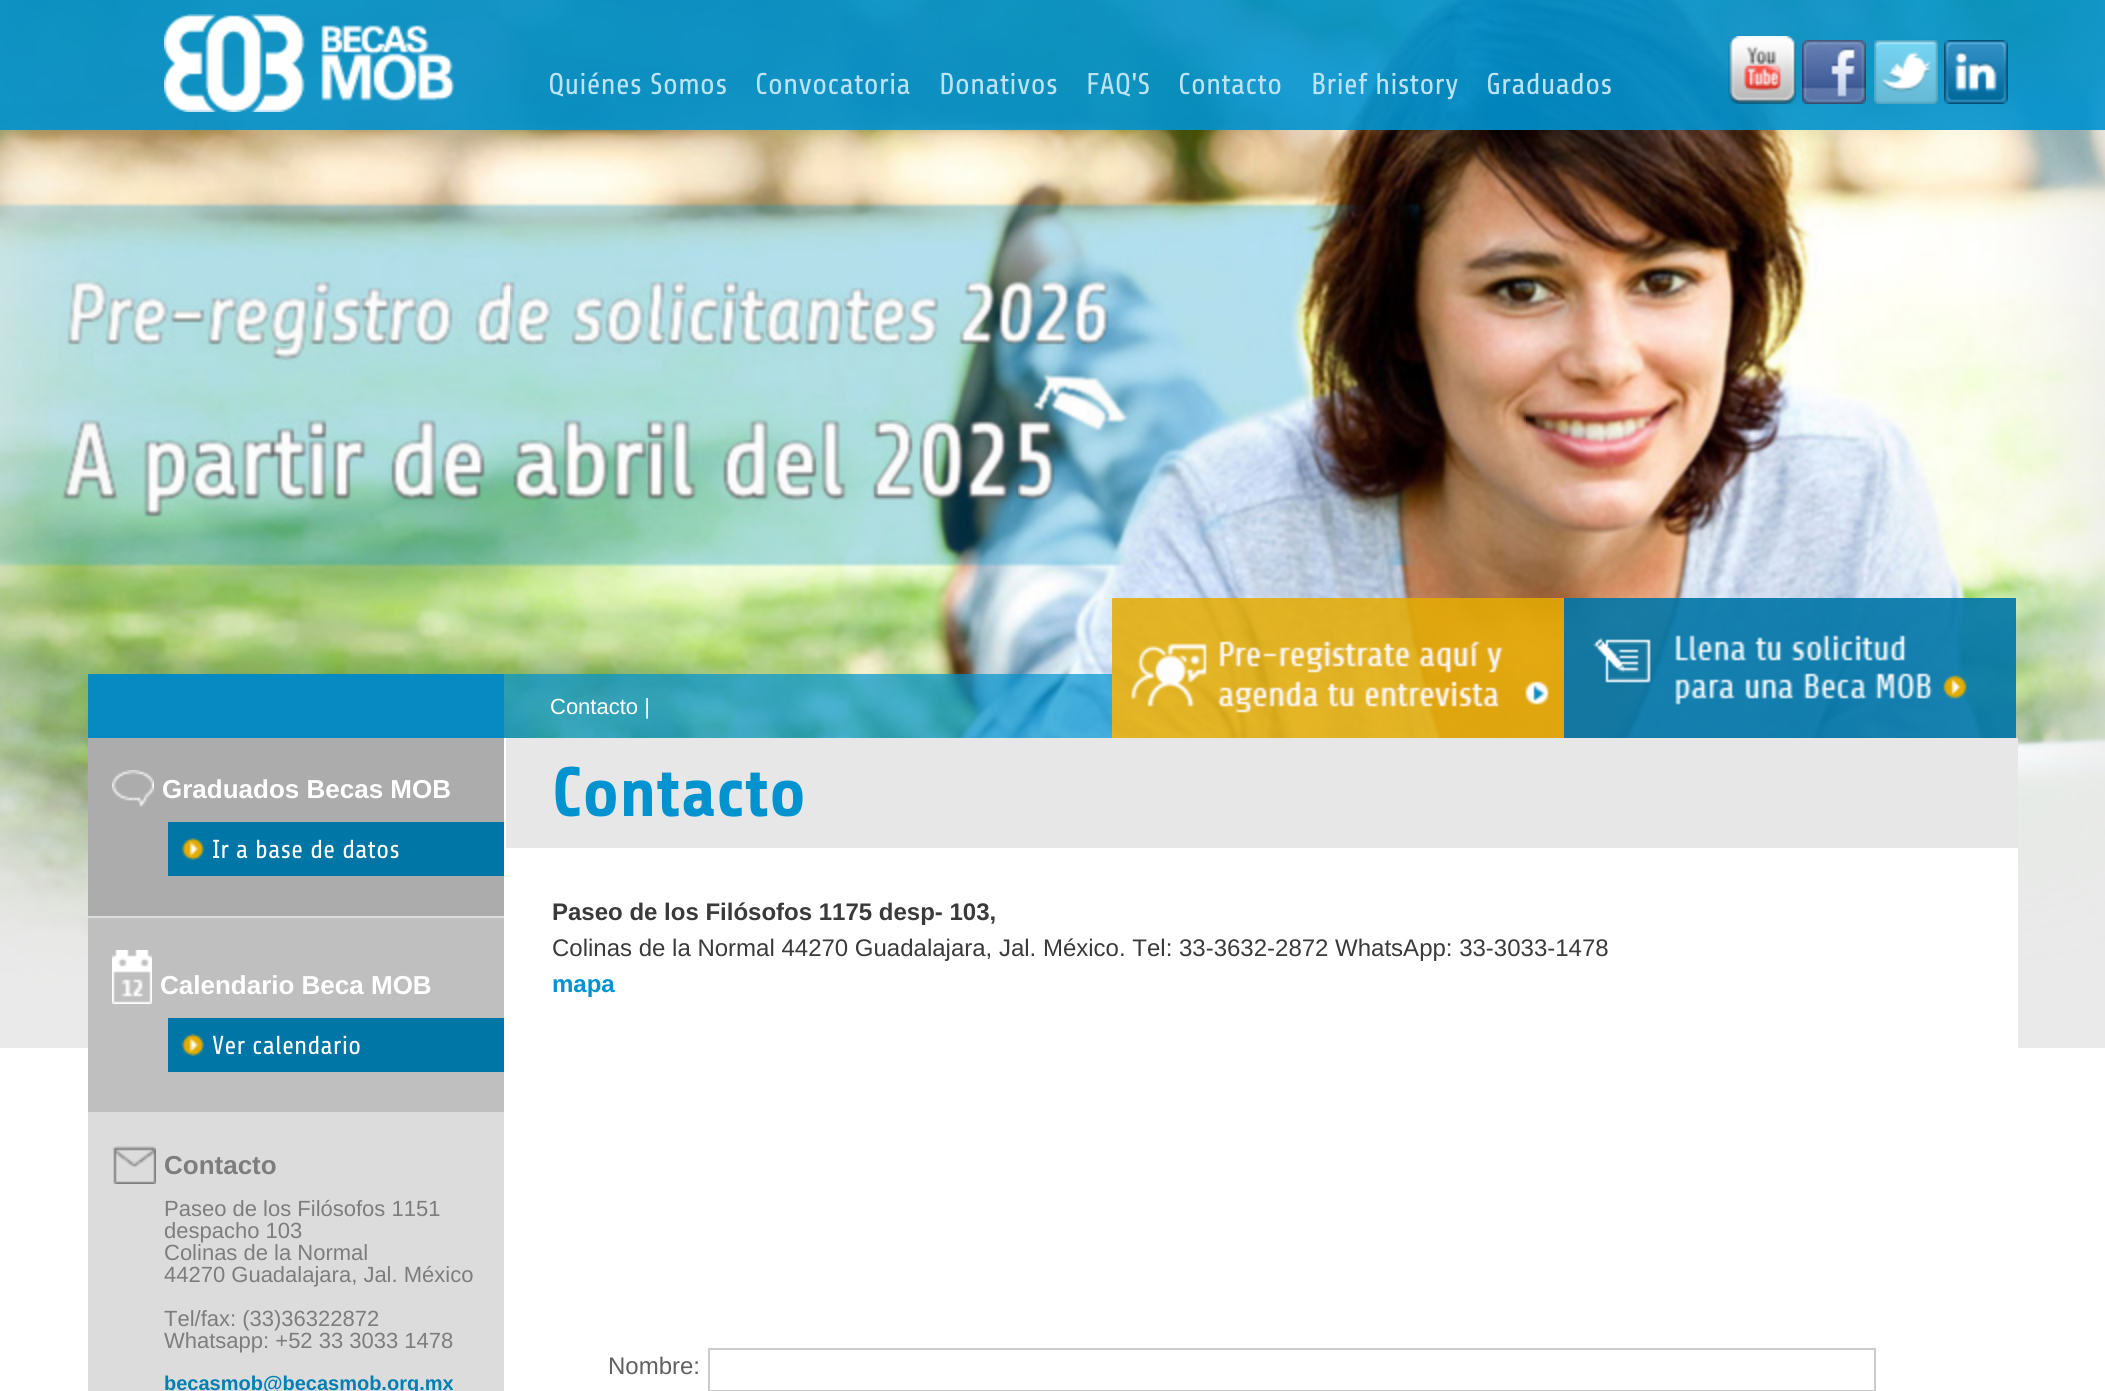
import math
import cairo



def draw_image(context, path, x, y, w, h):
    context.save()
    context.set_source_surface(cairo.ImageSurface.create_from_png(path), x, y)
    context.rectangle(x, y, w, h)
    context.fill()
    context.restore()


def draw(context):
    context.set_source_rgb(1, 1, 1)
    context.paint()
    draw_image(context, "images/6.png", 0, 0, 2105, 989)
    draw_image(context, "images/7.png", 0, 0, 2105, 1040)
    context.set_source_rgba(0, 147 / 255, 208 / 255, 0.9)
    context.rectangle(0, 0, 2105, 130)
    context.fill()
    draw_image(context, "images/1.png", 164, 14, 290, 98)
    draw_image(context, "images/2.png", 1728, 36, 68, 68)
    draw_image(context, "images/3.png", 1802, 40, 64, 64)
    draw_image(context, "images/4.png", 1874, 40, 64, 64)
    draw_image(context, "images/5.png", 1944, 40, 64, 64)
    context.set_source_rgb(234 / 255, 234 / 255, 234 / 255)
    context.rectangle(0, 1040, 2105, 8)
    context.fill()
    context.set_source_rgb(6 / 255, 138 / 255, 193 / 255)
    context.rectangle(88, 674, 416, 64)
    context.fill()
    context.set_source_rgba(0, 147 / 255, 208 / 255, 0.7)
    context.rectangle(504, 674, 608, 64)
    context.fill()
    draw_image(context, "images/8.png", 1112, 598, 452, 140)
    draw_image(context, "images/9.png", 1564, 598, 452, 140)
    context.set_source_rgb(1, 1, 1)
    context.rectangle(504, 738, 1514, 310)
    context.fill()
    context.set_source_rgb(172 / 255, 172 / 255, 172 / 255)
    context.rectangle(88, 738, 416, 178)
    context.fill()
    draw_image(context, "images/10.png", 112, 770, 42, 37)
    context.set_source_rgb(0, 118 / 255, 167 / 255)
    context.rectangle(168, 822, 336, 54)
    context.fill()
    draw_image(context, "images/11.png", 182, 838, 22, 22)
    context.set_source_rgb(220 / 255, 220 / 255, 220 / 255)
    context.rectangle(88, 916, 416, 475)
    context.fill()
    context.set_source_rgb(191 / 255, 191 / 255, 191 / 255)
    context.rectangle(88, 918, 416, 194)
    context.fill()
    draw_image(context, "images/12.png", 112, 950, 40, 54)
    context.set_source_rgb(0, 118 / 255, 167 / 255)
    context.rectangle(168, 1018, 336, 54)
    context.fill()
    draw_image(context, "images/11.png", 182, 1034, 22, 22)
    draw_image(context, "images/13.png", 112, 1146, 44, 38)
    context.set_source_rgb(231 / 255, 231 / 255, 231 / 255)
    context.rectangle(506, 738, 1512, 110)
    context.fill()
    context.rectangle(709, 1349, 1166, 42)
    context.set_source_rgb(204 / 255, 204 / 255, 204 / 255)
    context.stroke()
    context.select_font_face("Share")
    context.set_font_size(30)
    context.set_source_rgb(188 / 255, 227 / 255, 243 / 255)
    context.move_to(548, 94)
    context.show_text("Quiénes Somos")
    context.move_to(755, 94)
    context.show_text("Convocatoria")
    context.move_to(939, 94)
    context.show_text("Donativos")
    context.move_to(1086, 94)
    context.show_text("FAQ'S")
    context.move_to(1178, 94)
    context.show_text("Contacto")
    context.move_to(1311, 94)
    context.show_text("Brief history")
    context.move_to(1486, 94)
    context.show_text("Graduados")
    context.select_font_face("Liberation Sans")
    context.set_font_size(22)
    context.set_source_rgb(1, 1, 1)
    context.move_to(550, 714)
    context.show_text("Contacto |")
    context.select_font_face("Liberation Sans", cairo.FontSlant.NORMAL, cairo.FontWeight.BOLD)
    context.set_font_size(26)
    context.move_to(162, 798)
    context.show_text("Graduados Becas MOB")
    context.select_font_face("Share")
    context.move_to(212, 858)
    context.show_text("Ir a base de datos")
    context.select_font_face("Liberation Sans", cairo.FontSlant.NORMAL, cairo.FontWeight.BOLD)
    context.move_to(160, 994)
    context.show_text("Calendario Beca MOB")
    context.select_font_face("Share")
    context.move_to(212, 1054)
    context.show_text("Ver calendario")
    context.select_font_face("Liberation Sans", cairo.FontSlant.NORMAL, cairo.FontWeight.BOLD)
    context.set_source_rgb(125 / 255, 125 / 255, 125 / 255)
    context.move_to(164, 1174)
    context.show_text("Contacto")
    context.select_font_face("Liberation Sans")
    context.set_font_size(22)
    context.move_to(164, 1216)
    context.show_text("Paseo de los Filósofos 1151")
    context.move_to(164, 1238)
    context.show_text("despacho 103")
    context.move_to(164, 1260)
    context.show_text("Colinas de la Normal")
    context.move_to(164, 1282)
    context.show_text("44270 Guadalajara, Jal. México")
    context.move_to(164, 1326)
    context.show_text("Tel/fax: (33)36322872")
    context.move_to(164, 1348)
    context.show_text("Whatsapp: +52 33 3033 1478")
    context.select_font_face("Liberation Sans", cairo.FontSlant.NORMAL, cairo.FontWeight.BOLD)
    context.set_font_size(20)
    context.set_source_rgb(0, 127 / 255, 179 / 255)
    context.move_to(164, 1390)
    context.show_text("becasmob@becasmob.org.mx")
    context.select_font_face("Share", cairo.FontSlant.NORMAL, cairo.FontWeight.BOLD)
    context.set_font_size(70)
    context.set_source_rgb(0, 147 / 255, 208 / 255)
    context.move_to(552, 816)
    context.show_text("Contacto")
    context.select_font_face("Liberation Sans", cairo.FontSlant.NORMAL, cairo.FontWeight.BOLD)
    context.set_font_size(24)
    context.set_source_rgb(58 / 255, 58 / 255, 58 / 255)
    context.move_to(552, 920)
    context.show_text("Paseo de los Filósofos 1175 desp- 103,")
    context.select_font_face("Liberation Sans")
    context.move_to(552, 956)
    context.show_text("Colinas de la Normal 44270 Guadalajara, Jal. México. Tel: 33-3632-2872 WhatsApp: 33-3033-1478")
    context.select_font_face("Liberation Sans", cairo.FontSlant.NORMAL, cairo.FontWeight.BOLD)
    context.set_source_rgb(0, 147 / 255, 208 / 255)
    context.move_to(552, 992)
    context.show_text("mapa")
    context.select_font_face("Liberation Sans")
    context.set_source_rgb(96 / 255, 96 / 255, 96 / 255)
    context.move_to(608, 1374)
    context.show_text("Nombre:")


surface = cairo.ImageSurface(cairo.Format.RGB24, 2105, 1391)
context = cairo.Context(surface)
options = cairo.FontOptions()
options.set_hint_metrics(cairo.HintMetrics.OFF)
options.set_hint_style(cairo.HintStyle.NONE)
context.set_font_options(options)
context.set_miter_limit(4)
draw(context)
surface.write_to_png("out.png")
